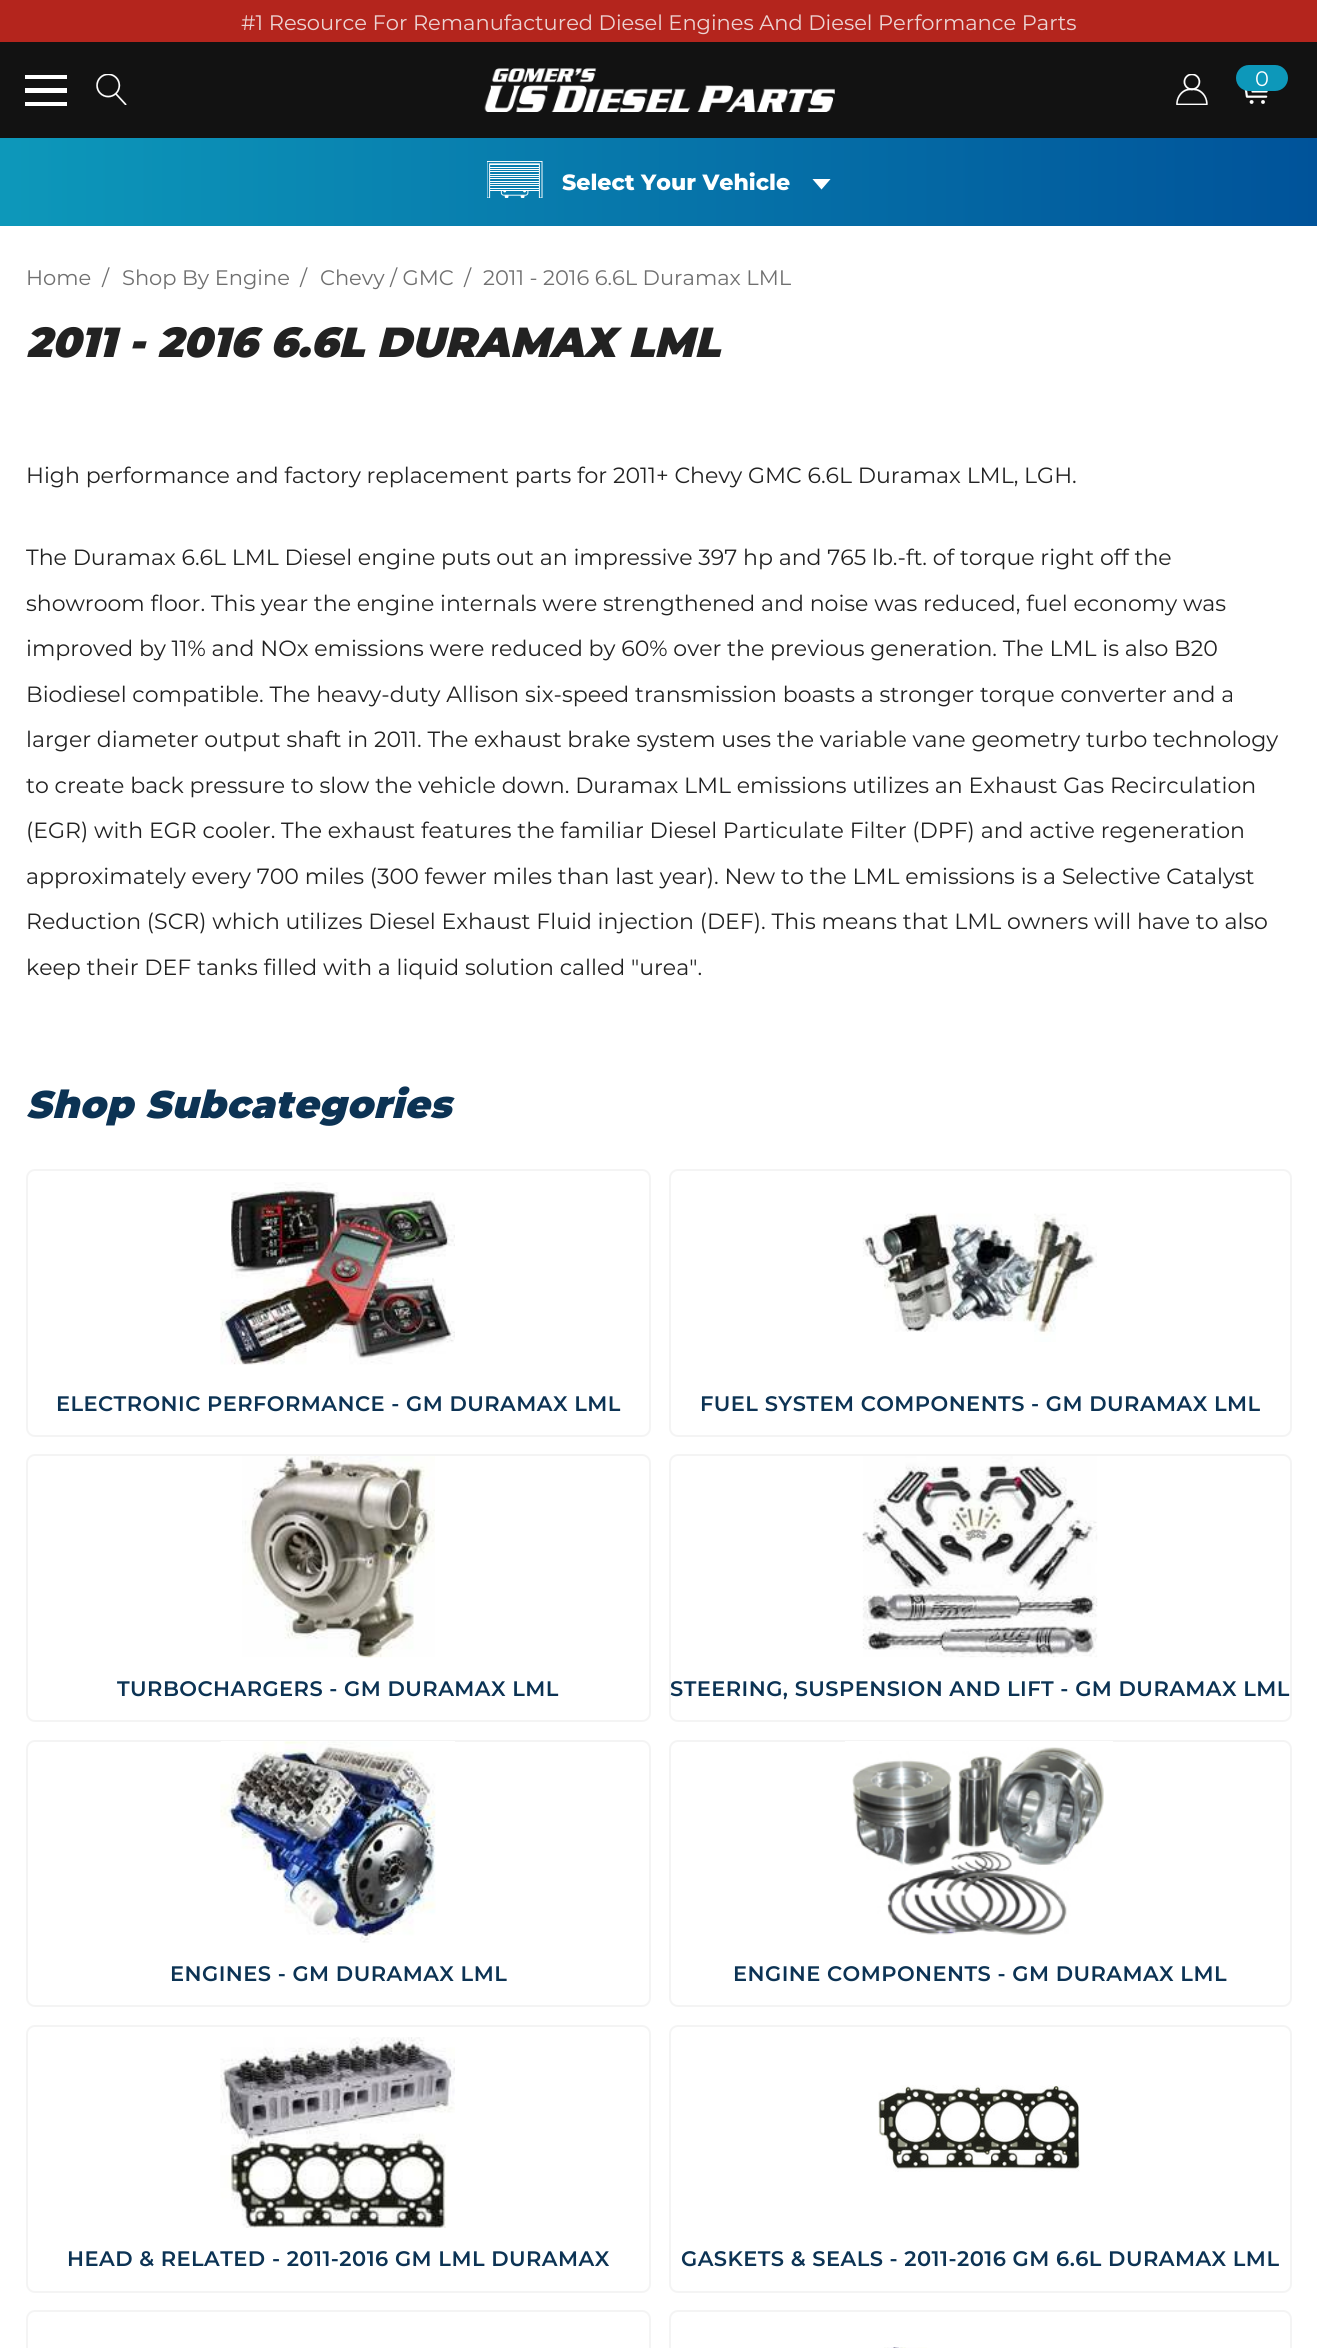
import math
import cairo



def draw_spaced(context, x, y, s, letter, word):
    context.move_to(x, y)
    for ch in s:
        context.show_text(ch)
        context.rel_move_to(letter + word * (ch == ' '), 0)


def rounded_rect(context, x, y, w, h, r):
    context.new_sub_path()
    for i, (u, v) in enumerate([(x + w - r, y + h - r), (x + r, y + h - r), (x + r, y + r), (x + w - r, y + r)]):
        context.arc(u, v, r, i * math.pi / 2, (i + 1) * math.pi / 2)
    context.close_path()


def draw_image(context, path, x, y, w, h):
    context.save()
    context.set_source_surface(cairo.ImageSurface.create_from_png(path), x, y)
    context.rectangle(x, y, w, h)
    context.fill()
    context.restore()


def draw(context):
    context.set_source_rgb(1, 1, 1)
    context.paint()
    context.set_source_rgb(180 / 255, 37 / 255, 29 / 255)
    context.rectangle(0, 0, 1317, 42)
    context.fill()
    context.set_source_rgb(18 / 255, 18 / 255, 18 / 255)
    context.rectangle(0, 42, 1317, 96)
    context.fill()
    context.set_source_rgb(1, 1, 1)
    context.rectangle(25, 88, 42, 5)
    context.fill()
    context.rectangle(25, 75, 42, 4)
    context.fill()
    context.rectangle(25, 102, 42, 4)
    context.fill()
    draw_image(context, "images/1.png", 96, 74, 31, 31)
    draw_image(context, "images/2.png", 484, 68, 351, 44)
    draw_image(context, "images/3.png", 1176, 74, 32, 31)
    draw_image(context, "images/4.png", 1244, 90, 24, 14)
    context.set_source_rgb(13 / 255, 152 / 255, 186 / 255)
    rounded_rect(context, 1236, 65, 52, 26, 13)
    context.fill()
    gradient = cairo.LinearGradient(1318, 182, 0, 182)
    gradient.add_color_stop_rgba(0, 0, 83 / 255, 154 / 255, 1)
    gradient.add_color_stop_rgba(1, 13 / 255, 152 / 255, 186 / 255, 1)
    context.set_source(gradient)
    context.rectangle(0, 138, 1317, 88)
    context.fill()
    draw_image(context, "images/5.png", 487, 161, 56, 37)
    context.save()
    context.rectangle(812, 179, 19, 11)
    context.clip()
    context.set_source_rgb(1, 1, 1)
    context.new_path()
    context.move_to(821.5, 189.5)
    context.line_to(812, 178.5)
    context.line_to(831, 178.5)
    context.close_path()
    context.fill()
    context.restore()
    rounded_rect(context, 27, 1170, 623, 266, 8)
    context.set_source_rgb(244 / 255, 244 / 255, 244 / 255)
    context.stroke()
    draw_image(context, "images/6.png", 220, 1182, 235, 183)
    rounded_rect(context, 670, 1170, 621, 266, 8)
    context.stroke()
    draw_image(context, "images/7.png", 862, 1213, 235, 129)
    rounded_rect(context, 27, 1455, 623, 266, 8)
    context.stroke()
    draw_image(context, "images/8.png", 242, 1456, 193, 202)
    rounded_rect(context, 670, 1455, 621, 266, 8)
    context.stroke()
    draw_image(context, "images/9.png", 862, 1456, 236, 202)
    rounded_rect(context, 27, 1741, 623, 265, 8)
    context.stroke()
    context.set_source_rgb(1, 1, 1)
    context.rectangle(221, 1741, 234, 1)
    context.fill()
    draw_image(context, "images/10.png", 220, 1741, 216, 202)
    rounded_rect(context, 670, 1741, 621, 265, 8)
    context.set_source_rgb(244 / 255, 244 / 255, 244 / 255)
    context.stroke()
    context.set_source_rgb(1, 1, 1)
    context.rectangle(845, 1741, 268, 1)
    context.fill()
    draw_image(context, "images/11.png", 852, 1747, 252, 189)
    rounded_rect(context, 27, 2026, 623, 266, 8)
    context.set_source_rgb(244 / 255, 244 / 255, 244 / 255)
    context.stroke()
    draw_image(context, "images/12.png", 220, 2037, 235, 191)
    rounded_rect(context, 670, 2026, 621, 266, 8)
    context.stroke()
    draw_image(context, "images/13.png", 878, 2085, 202, 87)
    rounded_rect(context, 27, 2311, 623, 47, 8)
    context.stroke()
    rounded_rect(context, 670, 2311, 621, 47, 8)
    context.stroke()
    draw_image(context, "images/14.png", 884, 2347, 43, 1)
    context.select_font_face("Montserrat")
    context.set_font_size(21)
    context.set_source_rgb(236 / 255, 212 / 255, 211 / 255)
    context.move_to(241, 30)
    context.show_text("#1 Resource For Remanufactured Diesel Engines And Diesel Performance Parts")
    context.set_source_rgb(1, 1, 1)
    context.move_to(1255, 86)
    context.show_text("0")
    context.select_font_face("Montserrat ExtraBold")
    context.set_font_size(22.05)
    context.move_to(562, 190)
    context.show_text("Select Your Vehicle")
    context.select_font_face("Montserrat")
    context.set_font_size(21)
    context.set_source_rgb(111 / 255, 111 / 255, 111 / 255)
    context.move_to(26, 285)
    context.show_text("Home")
    context.move_to(102, 285)
    context.show_text("/")
    context.move_to(122, 285)
    context.show_text("Shop By Engine")
    context.move_to(300, 285)
    context.show_text("/")
    context.move_to(320, 285)
    context.show_text("Chevy / GMC")
    context.move_to(464, 285)
    context.show_text("/")
    context.move_to(483, 285)
    context.show_text("2011 - 2016 6.6L Duramax LML")
    context.select_font_face("Montserrat Black", cairo.FontSlant.ITALIC)
    context.set_font_size(42)
    context.set_source_rgb(34 / 255, 34 / 255, 34 / 255)
    context.move_to(26, 357)
    context.show_text("2011 - 2016 6.6L DURAMAX LML")
    context.select_font_face("Montserrat")
    context.set_font_size(22.05)
    context.move_to(26, 483)
    context.show_text("High performance and factory replacement parts for 2011+ Chevy GMC 6.6L Duramax LML, LGH.")
    context.move_to(26, 565)
    context.show_text("The Duramax 6.6L LML Diesel engine puts out an impressive 397 hp and 765 lb.-ft. of torque right off the")
    context.move_to(26, 611)
    context.show_text("showroom floor. This year the engine internals were strengthened and noise was reduced, fuel economy was")
    context.move_to(26, 656)
    context.show_text("improved by 11% and NOx emissions were reduced by 60% over the previous generation. The LML is also B20")
    context.move_to(26, 702)
    context.show_text("Biodiesel compatible. The heavy-duty Allison six-speed transmission boasts a stronger torque converter and a")
    context.move_to(26, 747)
    context.show_text("larger diameter output shaft in 2011. The exhaust brake system uses the variable vane geometry turbo technology")
    context.move_to(26, 793)
    context.show_text("to create back pressure to slow the vehicle down. Duramax LML emissions utilizes an Exhaust Gas Recirculation")
    context.move_to(26, 838)
    context.show_text("(EGR) with EGR cooler. The exhaust features the familiar Diesel Particulate Filter (DPF) and active regeneration")
    context.move_to(26, 884)
    context.show_text("approximately every 700 miles (300 fewer miles than last year). New to the LML emissions is a Selective Catalyst")
    context.move_to(26, 929)
    context.show_text("Reduction (SCR) which utilizes Diesel Exhaust Fluid injection (DEF). This means that LML owners will have to also")
    context.move_to(26, 975)
    context.show_text("keep their DEF tanks filled with a liquid solution called \"urea\".")
    context.select_font_face("Montserrat Black", cairo.FontSlant.ITALIC)
    context.set_font_size(38.5)
    context.set_source_rgb(12 / 255, 51 / 255, 84 / 255)
    draw_spaced(context, 26, 1118, "Shop Subcategories", 0.45, 0)
    context.select_font_face("Montserrat SemiBold")
    context.set_font_size(21)
    draw_spaced(context, 56, 1411, "ELECTRONIC PERFORMANCE - GM DURAMAX LML", 0.45, 0)
    draw_spaced(context, 700, 1411, "FUEL SYSTEM COMPONENTS - GM DURAMAX LML", 0.45, 0)
    draw_spaced(context, 117, 1696, "TURBOCHARGERS - GM DURAMAX LML", 0.45, 0)
    draw_spaced(context, 670, 1696, "STEERING, SUSPENSION AND LIFT - GM DURAMAX LML", 0.45, 0)
    draw_spaced(context, 170, 1981, "ENGINES - GM DURAMAX LML", 0.45, 0)
    draw_spaced(context, 733, 1981, "ENGINE COMPONENTS - GM DURAMAX LML", 0.45, 0)
    draw_spaced(context, 67, 2266, "HEAD & RELATED - 2011-2016 GM LML DURAMAX", 0.45, 0)
    draw_spaced(context, 681, 2266, "GASKETS & SEALS - 2011-2016 GM 6.6L DURAMAX LML", 0.45, 0)


surface = cairo.ImageSurface(cairo.Format.RGB24, 1317, 2348)
context = cairo.Context(surface)
options = cairo.FontOptions()
options.set_hint_metrics(cairo.HintMetrics.OFF)
options.set_hint_style(cairo.HintStyle.NONE)
context.set_font_options(options)
context.set_miter_limit(4)
draw(context)
surface.write_to_png("out.png")
